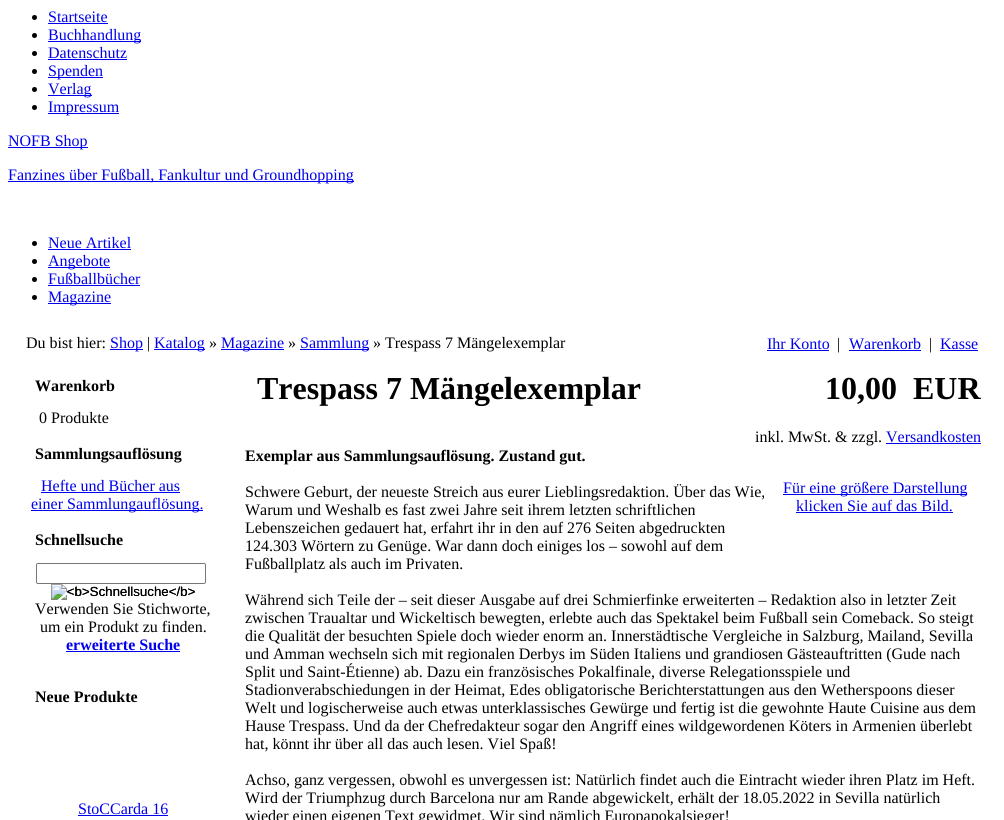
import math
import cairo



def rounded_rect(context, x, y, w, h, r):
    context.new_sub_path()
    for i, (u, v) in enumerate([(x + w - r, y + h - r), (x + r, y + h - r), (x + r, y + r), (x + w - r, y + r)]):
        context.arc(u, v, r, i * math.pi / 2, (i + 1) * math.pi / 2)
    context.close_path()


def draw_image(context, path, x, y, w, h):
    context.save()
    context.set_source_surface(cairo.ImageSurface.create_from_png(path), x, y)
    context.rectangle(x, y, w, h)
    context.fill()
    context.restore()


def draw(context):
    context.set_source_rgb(1, 1, 1)
    context.paint()
    context.set_source_rgb(0, 0, 0)
    context.arc(34.5, 17.5, 2.5, 0, 2 * math.pi)
    context.fill()
    context.set_source_rgb(0, 0, 238 / 255)
    context.rectangle(48, 23, 60, 1)
    context.fill()
    context.set_source_rgb(0, 0, 0)
    context.arc(34.5, 35.5, 2.5, 0, 2 * math.pi)
    context.fill()
    context.set_source_rgb(0, 0, 238 / 255)
    context.rectangle(48, 41, 93, 1)
    context.fill()
    context.set_source_rgb(0, 0, 0)
    context.arc(34.5, 53.5, 2.5, 0, 2 * math.pi)
    context.fill()
    context.set_source_rgb(0, 0, 238 / 255)
    context.rectangle(48, 59, 79, 1)
    context.fill()
    context.set_source_rgb(0, 0, 0)
    context.arc(34.5, 71.5, 2.5, 0, 2 * math.pi)
    context.fill()
    context.set_source_rgb(0, 0, 238 / 255)
    context.rectangle(48, 77, 55, 1)
    context.fill()
    context.set_source_rgb(0, 0, 0)
    context.arc(34.5, 89.5, 2.5, 0, 2 * math.pi)
    context.fill()
    context.set_source_rgb(0, 0, 238 / 255)
    context.rectangle(48, 95, 44, 1)
    context.fill()
    context.set_source_rgb(0, 0, 0)
    context.arc(34.5, 107.5, 2.5, 0, 2 * math.pi)
    context.fill()
    context.set_source_rgb(0, 0, 238 / 255)
    context.rectangle(48, 113, 71, 1)
    context.fill()
    context.rectangle(8, 147, 80, 1)
    context.fill()
    context.rectangle(8, 181, 346, 1)
    context.fill()
    context.set_source_rgb(0, 0, 0)
    context.arc(34.5, 243.5, 2.5, 0, 2 * math.pi)
    context.fill()
    context.set_source_rgb(0, 0, 238 / 255)
    context.rectangle(48, 249, 83, 1)
    context.fill()
    context.set_source_rgb(0, 0, 0)
    context.arc(34.5, 261.5, 2.5, 0, 2 * math.pi)
    context.fill()
    context.set_source_rgb(0, 0, 238 / 255)
    context.rectangle(48, 267, 62, 1)
    context.fill()
    context.set_source_rgb(0, 0, 0)
    context.arc(34.5, 279.5, 2.5, 0, 2 * math.pi)
    context.fill()
    context.set_source_rgb(0, 0, 238 / 255)
    context.rectangle(48, 285, 92, 1)
    context.fill()
    context.set_source_rgb(0, 0, 0)
    context.arc(34.5, 297.5, 2.5, 0, 2 * math.pi)
    context.fill()
    context.set_source_rgb(0, 0, 238 / 255)
    context.rectangle(48, 303, 63, 1)
    context.fill()
    context.rectangle(110, 349, 33, 1)
    context.fill()
    context.rectangle(154, 349, 51, 1)
    context.fill()
    context.rectangle(221, 349, 63, 1)
    context.fill()
    context.rectangle(300, 349, 69, 1)
    context.fill()
    context.rectangle(767, 350, 62, 1)
    context.fill()
    context.rectangle(849, 350, 72, 1)
    context.fill()
    context.rectangle(940, 350, 38, 1)
    context.fill()
    context.rectangle(41, 492, 139, 1)
    context.fill()
    context.rectangle(31, 510, 172, 1)
    context.fill()
    rounded_rect(context, 36.5, 563.5, 169, 20, 1.5)
    context.set_source_rgb(118 / 255, 118 / 255, 118 / 255)
    context.set_line_width(1)
    context.stroke()
    draw_image(context, "images/1.png", 51, 584, 144, 16)
    context.set_source_rgb(0, 0, 238 / 255)
    context.rectangle(66, 651, 114, 1)
    context.fill()
    context.rectangle(78, 815, 90, 1)
    context.fill()
    context.rectangle(886, 443, 95, 1)
    context.fill()
    context.rectangle(783, 494, 184, 1)
    context.fill()
    context.rectangle(796, 512, 157, 1)
    context.fill()
    context.select_font_face("Liberation Serif")
    context.set_font_size(16)
    context.move_to(48, 22)
    context.show_text("Startseite")
    context.move_to(48, 40)
    context.show_text("Buchhandlung")
    context.move_to(48, 58)
    context.show_text("Datenschutz")
    context.move_to(48, 76)
    context.show_text("Spenden")
    context.move_to(48, 94)
    context.show_text("Verlag")
    context.move_to(48, 112)
    context.show_text("Impressum")
    context.move_to(8, 146)
    context.show_text("NOFB Shop")
    context.move_to(8, 180)
    context.show_text("Fanzines über Fußball, Fankultur und Groundhopping")
    context.move_to(48, 248)
    context.show_text("Neue Artikel")
    context.move_to(48, 266)
    context.show_text("Angebote")
    context.move_to(48, 284)
    context.show_text("Fußballbücher")
    context.move_to(48, 302)
    context.show_text("Magazine")
    context.set_source_rgb(0, 0, 0)
    context.move_to(26, 348)
    context.show_text("Du bist hier:")
    context.set_source_rgb(0, 0, 238 / 255)
    context.move_to(110, 348)
    context.show_text("Shop")
    context.set_source_rgb(0, 0, 0)
    context.move_to(147, 348)
    context.show_text("|")
    context.set_source_rgb(0, 0, 238 / 255)
    context.move_to(154, 348)
    context.show_text("Katalog")
    context.set_source_rgb(0, 0, 0)
    context.move_to(209, 348)
    context.show_text("»")
    context.set_source_rgb(0, 0, 238 / 255)
    context.move_to(221, 348)
    context.show_text("Magazine")
    context.set_source_rgb(0, 0, 0)
    context.move_to(288, 348)
    context.show_text("»")
    context.set_source_rgb(0, 0, 238 / 255)
    context.move_to(300, 348)
    context.show_text("Sammlung")
    context.set_source_rgb(0, 0, 0)
    context.move_to(373, 348)
    context.show_text("» Trespass 7 Mängelexemplar")
    context.set_source_rgb(0, 0, 238 / 255)
    context.move_to(767, 349)
    context.show_text("Ihr Konto")
    context.set_source_rgb(0, 0, 0)
    context.move_to(837, 349)
    context.show_text("|")
    context.set_source_rgb(0, 0, 238 / 255)
    context.move_to(849, 349)
    context.show_text("Warenkorb")
    context.set_source_rgb(0, 0, 0)
    context.move_to(929, 349)
    context.show_text("|")
    context.set_source_rgb(0, 0, 238 / 255)
    context.move_to(940, 349)
    context.show_text("Kasse")
    context.select_font_face("Liberation Serif", cairo.FontSlant.NORMAL, cairo.FontWeight.BOLD)
    context.set_source_rgb(0, 0, 0)
    context.move_to(35, 391)
    context.show_text("Warenkorb")
    context.select_font_face("Liberation Serif")
    context.move_to(39, 423)
    context.show_text("0 Produkte")
    context.select_font_face("Liberation Serif", cairo.FontSlant.NORMAL, cairo.FontWeight.BOLD)
    context.move_to(35, 459)
    context.show_text("Sammlungsauflösung")
    context.select_font_face("Liberation Serif")
    context.set_source_rgb(0, 0, 238 / 255)
    context.move_to(41, 491)
    context.show_text("Hefte und Bücher aus")
    context.move_to(31, 509)
    context.show_text("einer Sammlungauflösung.")
    context.select_font_face("Liberation Serif", cairo.FontSlant.NORMAL, cairo.FontWeight.BOLD)
    context.set_source_rgb(0, 0, 0)
    context.move_to(35, 545)
    context.show_text("Schnellsuche")
    context.select_font_face("Liberation Sans")
    context.set_font_size(13.25)
    context.move_to(67, 596)
    context.show_text("<b>Schnellsuche</b>")
    context.select_font_face("Liberation Serif")
    context.set_font_size(16)
    context.move_to(35, 614)
    context.show_text("Verwenden Sie Stichworte,")
    context.move_to(40, 632)
    context.show_text("um ein Produkt zu finden.")
    context.select_font_face("Liberation Serif", cairo.FontSlant.NORMAL, cairo.FontWeight.BOLD)
    context.set_source_rgb(0, 0, 238 / 255)
    context.move_to(66, 650)
    context.show_text("erweiterte Suche")
    context.set_source_rgb(0, 0, 0)
    context.move_to(35, 702)
    context.show_text("Neue Produkte")
    context.select_font_face("Liberation Serif")
    context.set_source_rgb(0, 0, 238 / 255)
    context.move_to(78, 814)
    context.show_text("StoCCarda 16")
    context.select_font_face("Liberation Serif", cairo.FontSlant.NORMAL, cairo.FontWeight.BOLD)
    context.set_font_size(32)
    context.set_source_rgb(0, 0, 0)
    context.move_to(257, 399)
    context.show_text("Trespass 7 Mängelexemplar")
    context.move_to(825, 399)
    context.show_text("10,00  EUR")
    context.select_font_face("Liberation Serif")
    context.set_font_size(16)
    context.move_to(755, 442)
    context.show_text("inkl. MwSt. & zzgl.")
    context.set_source_rgb(0, 0, 238 / 255)
    context.move_to(886, 442)
    context.show_text("Versandkosten")
    context.select_font_face("Liberation Serif", cairo.FontSlant.NORMAL, cairo.FontWeight.BOLD)
    context.set_source_rgb(0, 0, 0)
    context.move_to(245, 461)
    context.show_text("Exemplar aus Sammlungsauflösung. Zustand gut.")
    context.select_font_face("Liberation Serif")
    context.move_to(245, 497)
    context.show_text("Schwere Geburt, der neueste Streich aus eurer Lieblingsredaktion. Über das Wie,")
    context.move_to(245, 515)
    context.show_text("Warum und Weshalb es fast zwei Jahre seit ihrem letzten schriftlichen")
    context.move_to(245, 533)
    context.show_text("Lebenszeichen gedauert hat, erfahrt ihr in den auf 276 Seiten abgedruckten")
    context.move_to(245, 551)
    context.show_text("124.303 Wörtern zu Genüge. War dann doch einiges los – sowohl auf dem")
    context.move_to(245, 569)
    context.show_text("Fußballplatz als auch im Privaten.")
    context.move_to(245, 605)
    context.show_text("Während sich Teile der – seit dieser Ausgabe auf drei Schmierfinke erweiterten – Redaktion also in letzter Zeit")
    context.move_to(245, 623)
    context.show_text("zwischen Traualtar und Wickeltisch bewegten, erlebte auch das Spektakel beim Fußball sein Comeback. So steigt")
    context.move_to(245, 641)
    context.show_text("die Qualität der besuchten Spiele doch wieder enorm an. Innerstädtische Vergleiche in Salzburg, Mailand, Sevilla")
    context.move_to(245, 659)
    context.show_text("und Amman wechseln sich mit regionalen Derbys im Süden Italiens und grandiosen Gästeauftritten (Gude nach")
    context.move_to(245, 677)
    context.show_text("Split und Saint-Étienne) ab. Dazu ein französisches Pokalfinale, diverse Relegationsspiele und")
    context.move_to(245, 695)
    context.show_text("Stadionverabschiedungen in der Heimat, Edes obligatorische Berichterstattungen aus den Wetherspoons dieser")
    context.move_to(245, 713)
    context.show_text("Welt und logischerweise auch etwas unterklassisches Gewürge und fertig ist die gewohnte Haute Cuisine aus dem")
    context.move_to(245, 731)
    context.show_text("Hause Trespass. Und da der Chefredakteur sogar den Angriff eines wildgewordenen Köters in Armenien überlebt")
    context.move_to(245, 749)
    context.show_text("hat, könnt ihr über all das auch lesen. Viel Spaß!")
    context.move_to(245, 785)
    context.show_text("Achso, ganz vergessen, obwohl es unvergessen ist: Natürlich findet auch die Eintracht wieder ihren Platz im Heft.")
    context.move_to(245, 803)
    context.show_text("Wird der Triumphzug durch Barcelona nur am Rande abgewickelt, erhält der 18.05.2022 in Sevilla natürlich")
    context.move_to(245, 821)
    context.show_text("wieder einen eigenen Text gewidmet. Wir sind nämlich Europapokalsieger!")
    context.set_source_rgb(0, 0, 238 / 255)
    context.move_to(783, 493)
    context.show_text("Für eine größere Darstellung")
    context.move_to(796, 511)
    context.show_text("klicken Sie auf das Bild.")


surface = cairo.ImageSurface(cairo.Format.RGB24, 1004, 820)
context = cairo.Context(surface)
options = cairo.FontOptions()
options.set_hint_metrics(cairo.HintMetrics.OFF)
options.set_hint_style(cairo.HintStyle.NONE)
context.set_font_options(options)
context.set_miter_limit(4)
draw(context)
surface.write_to_png("out.png")
